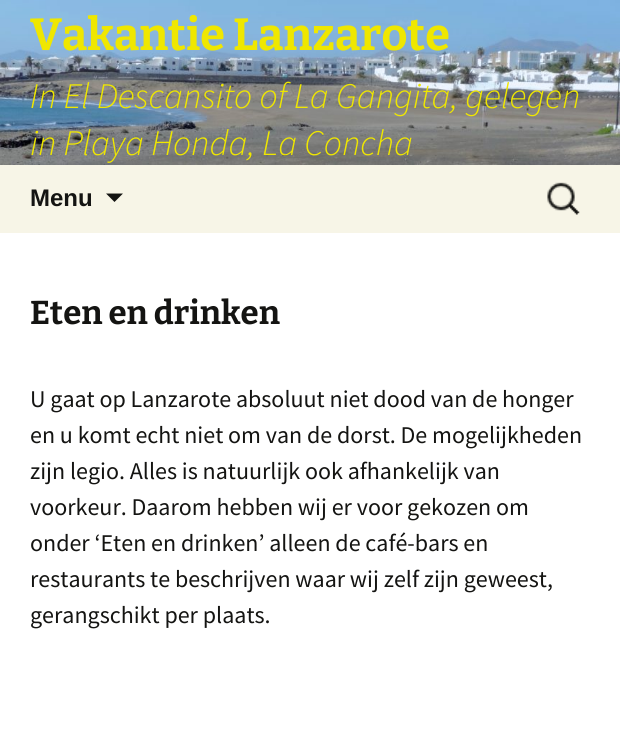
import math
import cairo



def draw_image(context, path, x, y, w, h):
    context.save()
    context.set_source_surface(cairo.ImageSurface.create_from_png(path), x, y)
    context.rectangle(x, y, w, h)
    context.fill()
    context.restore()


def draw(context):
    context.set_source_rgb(1, 1, 1)
    context.paint()
    draw_image(context, "images/1.png", 0, 0, 620, 165)
    context.set_source_rgb(247 / 255, 245 / 255, 231 / 255)
    context.rectangle(0, 165, 620, 68)
    context.fill()
    context.set_source_rgb(20 / 255, 20 / 255, 18 / 255)
    context.new_path()
    context.move_to(106, 193.5)
    context.line_to(114.5, 202)
    context.line_to(123, 193.5)
    context.close_path()
    context.fill()
    draw_image(context, "images/2.png", 547, 182, 33, 33)
    context.select_font_face("Bitter", cairo.FontSlant.NORMAL, cairo.FontWeight.BOLD)
    context.set_font_size(45)
    context.set_source_rgb(239 / 255, 231 / 255, 0)
    context.move_to(30, 50)
    context.show_text("Vakantie Lanzarote")
    context.select_font_face("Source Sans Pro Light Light", cairo.FontSlant.ITALIC)
    context.set_font_size(36)
    context.move_to(30, 108)
    context.show_text("In El Descansito of La Gangita, gelegen")
    context.move_to(30, 155)
    context.show_text("in Playa Honda, La Concha")
    context.select_font_face("Liberation Sans", cairo.FontSlant.NORMAL, cairo.FontWeight.BOLD)
    context.set_font_size(24)
    context.set_source_rgb(20 / 255, 20 / 255, 18 / 255)
    context.move_to(30, 206)
    context.show_text("Menu")
    context.select_font_face("Bitter", cairo.FontSlant.NORMAL, cairo.FontWeight.BOLD)
    context.set_font_size(33)
    context.move_to(30, 324)
    context.show_text("Eten en drinken")
    context.select_font_face("Source Sans Pro")
    context.set_font_size(24)
    context.move_to(30, 407)
    context.show_text("U gaat op Lanzarote absoluut niet dood van de honger")
    context.move_to(30, 443)
    context.show_text("en u komt echt niet om van de dorst. De mogelijkheden")
    context.move_to(30, 479)
    context.show_text("zijn legio. Alles is natuurlijk ook afhankelijk van")
    context.move_to(30, 515)
    context.show_text("voorkeur. Daarom hebben wij er voor gekozen om")
    context.move_to(30, 551)
    context.show_text("onder ‘Eten en drinken’ alleen de café-bars en")
    context.move_to(30, 587)
    context.show_text("restaurants te beschrijven waar wij zelf zijn geweest,")
    context.move_to(30, 623)
    context.show_text("gerangschikt per plaats.")


surface = cairo.ImageSurface(cairo.Format.RGB24, 620, 743)
context = cairo.Context(surface)
options = cairo.FontOptions()
options.set_hint_metrics(cairo.HintMetrics.OFF)
options.set_hint_style(cairo.HintStyle.NONE)
context.set_font_options(options)
context.set_miter_limit(4)
draw(context)
surface.write_to_png("out.png")
